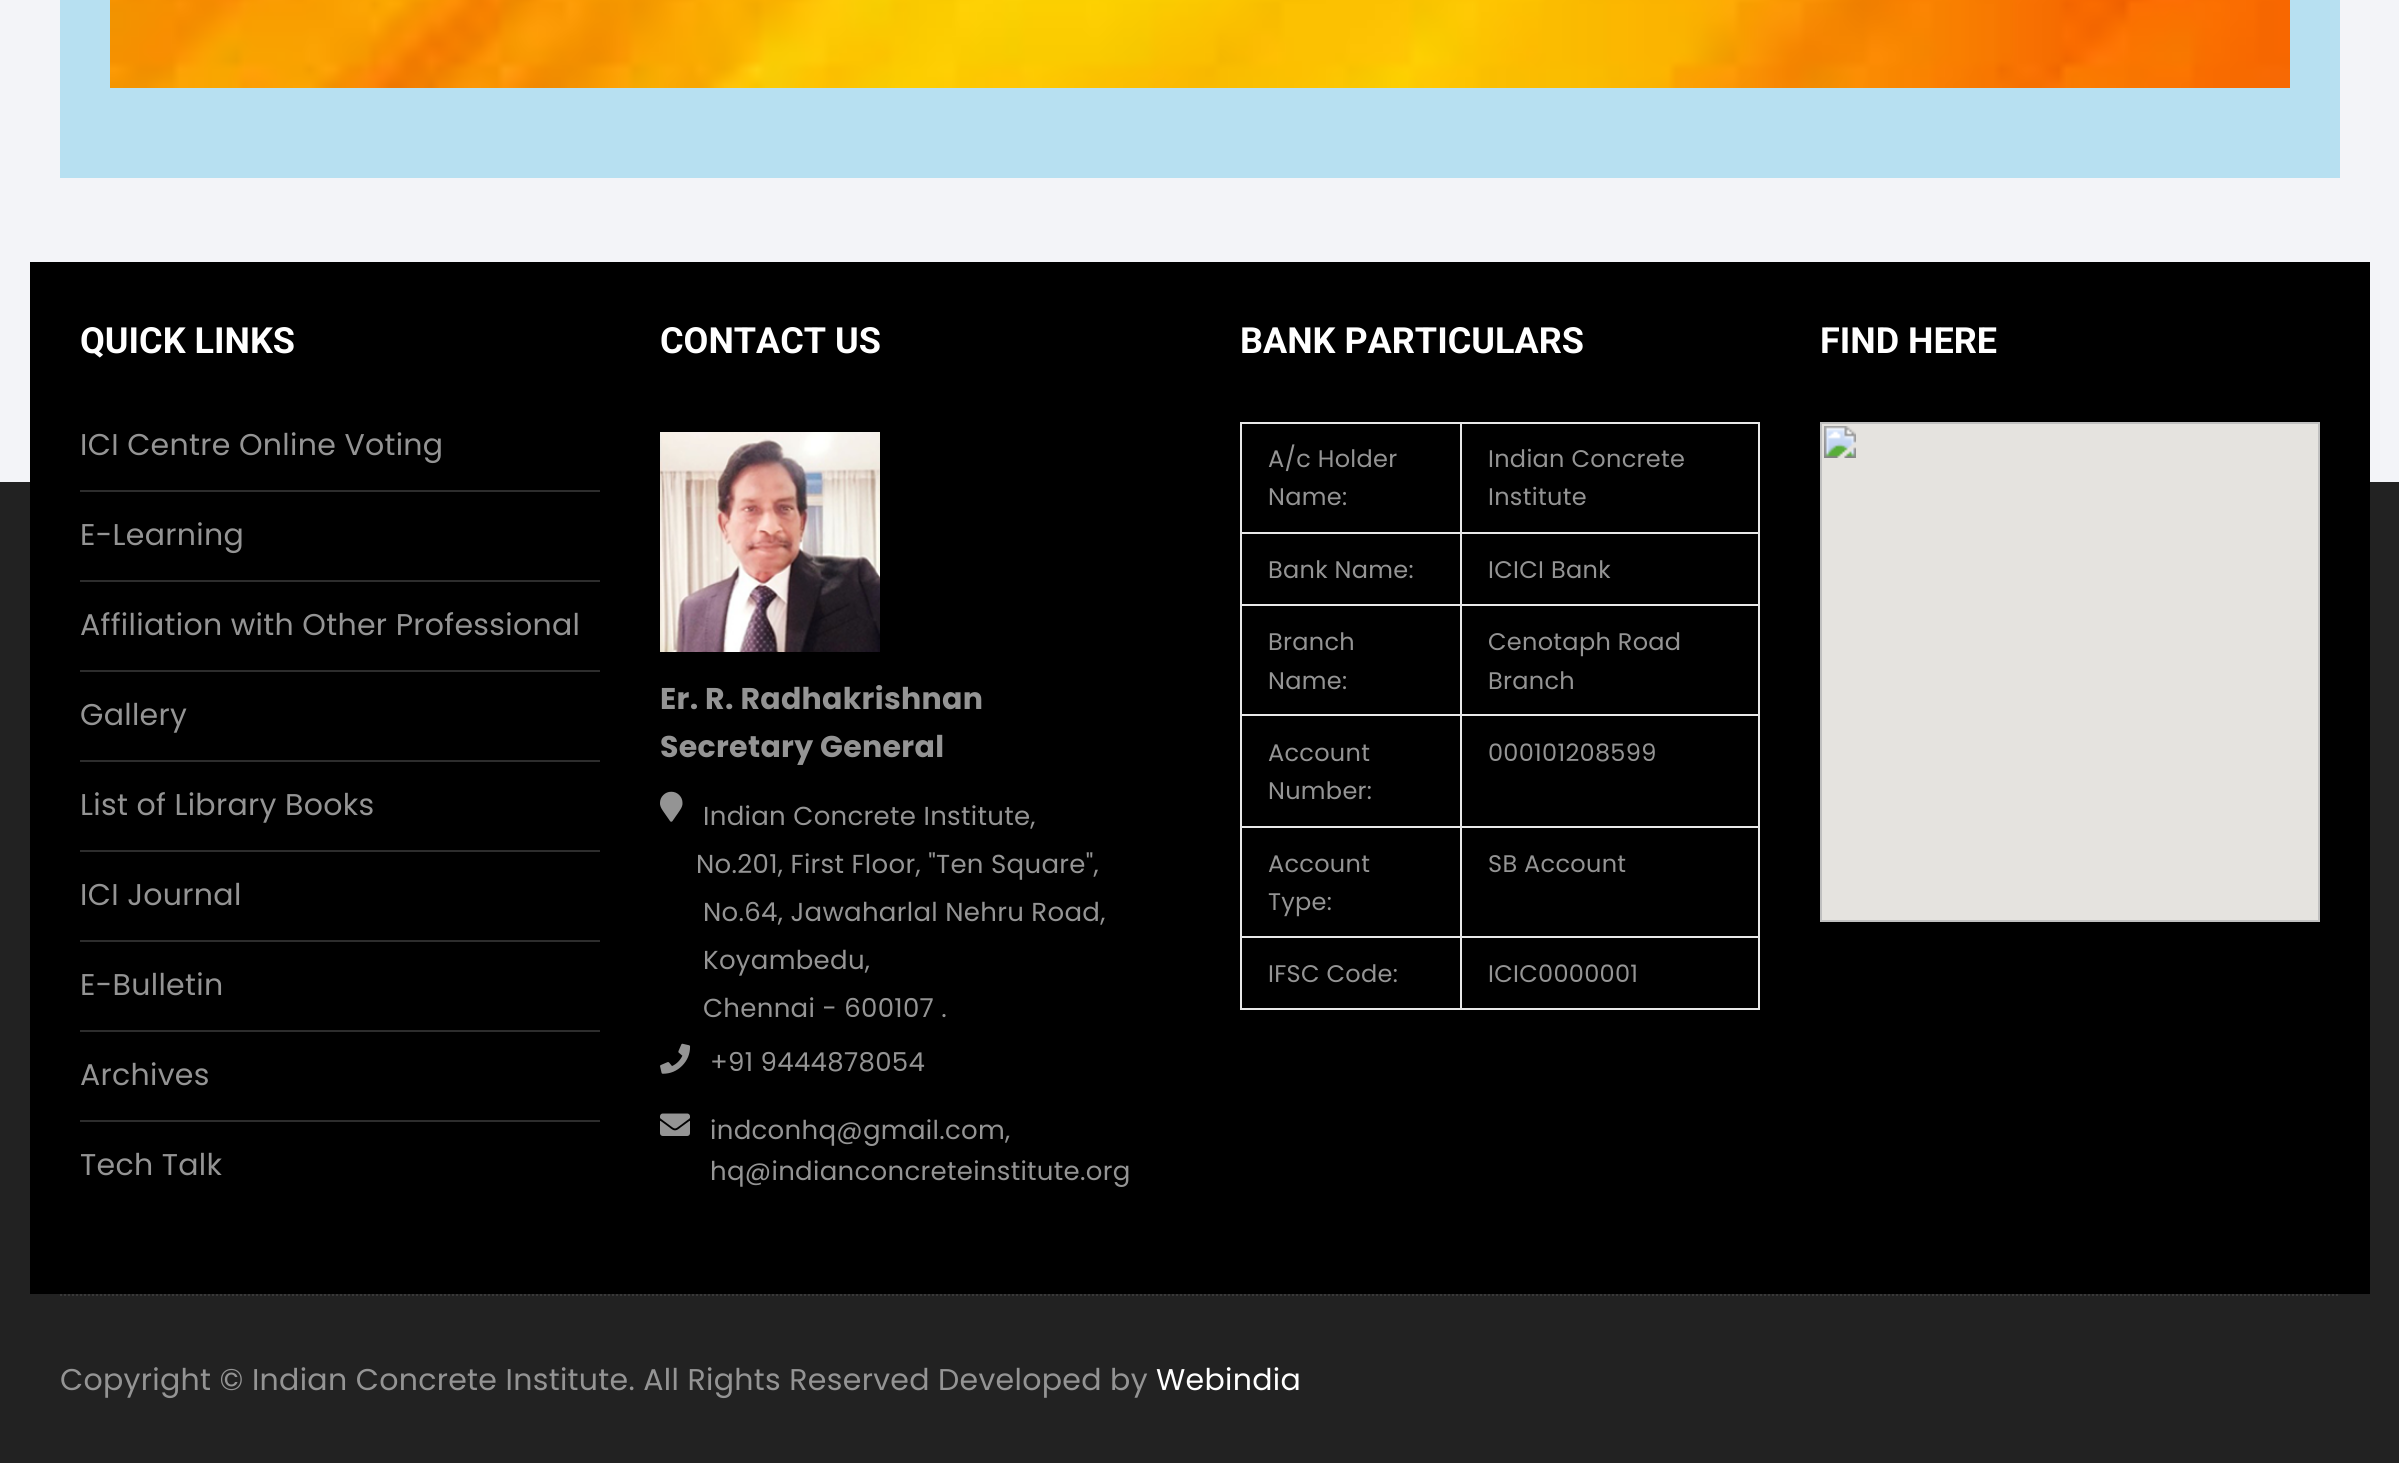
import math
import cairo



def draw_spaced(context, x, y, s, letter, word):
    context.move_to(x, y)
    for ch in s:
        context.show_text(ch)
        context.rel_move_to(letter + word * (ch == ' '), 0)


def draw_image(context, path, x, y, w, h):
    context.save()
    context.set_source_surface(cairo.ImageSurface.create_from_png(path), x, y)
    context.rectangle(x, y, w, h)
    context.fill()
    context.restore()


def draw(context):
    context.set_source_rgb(243 / 255, 244 / 255, 248 / 255)
    context.paint()
    context.set_source_rgb(183 / 255, 224 / 255, 241 / 255)
    context.rectangle(60, 0, 2280, 178)
    context.fill()
    draw_image(context, "images/1.png", 110, 0, 2180, 88)
    context.set_source_rgb(34 / 255, 34 / 255, 34 / 255)
    context.rectangle(0, 482, 2399, 981)
    context.fill()
    context.new_path()
    context.move_to(60, 1295)
    context.line_to(2340, 1295)
    context.set_source_rgb(56 / 255, 56 / 255, 56 / 255)
    context.set_dash([2, 2])
    context.stroke()
    context.set_source_rgb(0, 0, 0)
    context.rectangle(30, 262, 2340, 1032)
    context.fill()
    context.set_source_rgb(45 / 255, 45 / 255, 45 / 255)
    context.rectangle(80, 490, 520, 2)
    context.fill()
    context.rectangle(80, 580, 520, 2)
    context.fill()
    context.rectangle(80, 670, 520, 2)
    context.fill()
    context.rectangle(80, 760, 520, 2)
    context.fill()
    context.rectangle(80, 850, 520, 2)
    context.fill()
    context.rectangle(80, 940, 520, 2)
    context.fill()
    context.rectangle(80, 1030, 520, 2)
    context.fill()
    context.rectangle(80, 1120, 520, 2)
    context.fill()
    draw_image(context, "images/2.png", 660, 432, 220, 220)
    draw_image(context, "images/3.png", 660, 791, 23, 31)
    draw_image(context, "images/4.png", 660, 1043, 31, 31)
    draw_image(context, "images/5.png", 660, 1113, 30, 23)
    context.set_source_rgb(232 / 255, 232 / 255, 232 / 255)
    context.rectangle(1460, 422, 300, 2)
    context.fill()
    context.rectangle(1460, 532, 300, 2)
    context.fill()
    context.rectangle(1460, 604, 300, 2)
    context.fill()
    context.rectangle(1460, 714, 300, 2)
    context.fill()
    context.rectangle(1460, 826, 300, 2)
    context.fill()
    context.rectangle(1460, 936, 300, 2)
    context.fill()
    context.rectangle(1758, 936, 2, 74)
    context.fill()
    context.rectangle(1460, 1008, 300, 2)
    context.fill()
    context.rectangle(1460, 936, 2, 74)
    context.fill()
    context.rectangle(1240, 936, 222, 2)
    context.fill()
    context.rectangle(1460, 826, 2, 112)
    context.fill()
    context.rectangle(1240, 826, 222, 2)
    context.fill()
    context.rectangle(1460, 714, 2, 114)
    context.fill()
    context.rectangle(1240, 714, 222, 2)
    context.fill()
    context.rectangle(1460, 604, 2, 112)
    context.fill()
    context.rectangle(1240, 604, 222, 2)
    context.fill()
    context.rectangle(1460, 532, 2, 74)
    context.fill()
    context.rectangle(1240, 532, 222, 2)
    context.fill()
    context.rectangle(1460, 422, 2, 112)
    context.fill()
    context.rectangle(1240, 422, 222, 2)
    context.fill()
    context.rectangle(1240, 1008, 222, 2)
    context.fill()
    context.rectangle(1240, 936, 2, 74)
    context.fill()
    context.rectangle(1240, 826, 2, 112)
    context.fill()
    context.rectangle(1240, 714, 2, 114)
    context.fill()
    context.rectangle(1240, 604, 2, 112)
    context.fill()
    context.rectangle(1240, 532, 2, 74)
    context.fill()
    context.rectangle(1240, 422, 2, 112)
    context.fill()
    context.rectangle(1758, 826, 2, 112)
    context.fill()
    context.rectangle(1758, 714, 2, 114)
    context.fill()
    context.rectangle(1758, 604, 2, 112)
    context.fill()
    context.rectangle(1758, 532, 2, 74)
    context.fill()
    context.rectangle(1758, 422, 2, 112)
    context.fill()
    draw_image(context, "images/6.png", 1820, 422, 500, 500)
    context.select_font_face("Roboto", cairo.FontSlant.NORMAL, cairo.FontWeight.BOLD)
    context.set_font_size(36)
    context.set_source_rgb(1, 1, 1)
    context.move_to(80, 353)
    context.show_text("QUICK LINKS")
    context.select_font_face("Poppins")
    context.set_font_size(30)
    context.set_source_rgb(148 / 255, 148 / 255, 148 / 255)
    draw_spaced(context, 80, 455, "ICI Centre Online Voting", 0.3, 0)
    draw_spaced(context, 80, 545, "E-Learning", 0.3, 0)
    draw_spaced(context, 80, 635, "Affiliation with Other Professional", 0.3, 0)
    draw_spaced(context, 80, 725, "Gallery", 0.3, 0)
    draw_spaced(context, 80, 815, "List of Library Books", 0.3, 0)
    draw_spaced(context, 80, 905, "ICI Journal", 0.3, 0)
    draw_spaced(context, 80, 995, "E-Bulletin", 0.3, 0)
    draw_spaced(context, 80, 1085, "Archives", 0.3, 0)
    draw_spaced(context, 80, 1175, "Tech Talk", 0.3, 0)
    context.select_font_face("Roboto", cairo.FontSlant.NORMAL, cairo.FontWeight.BOLD)
    context.set_font_size(36)
    context.set_source_rgb(1, 1, 1)
    context.move_to(660, 353)
    context.show_text("CONTACT US")
    context.select_font_face("Poppins", cairo.FontSlant.NORMAL, cairo.FontWeight.BOLD)
    context.set_font_size(30)
    context.set_source_rgb(148 / 255, 148 / 255, 148 / 255)
    draw_spaced(context, 660, 709, "Er. R. Radhakrishnan", 0.3, 0)
    draw_spaced(context, 660, 757, "Secretary General", 0.3, 0)
    context.select_font_face("Poppins")
    context.set_font_size(26)
    draw_spaced(context, 703, 825, "Indian Concrete Institute,", 0.3, 0)
    draw_spaced(context, 696, 873, "No.201, First Floor, \"Ten Square\",", 0.3, 0)
    draw_spaced(context, 703, 921, "No.64, Jawaharlal Nehru Road,", 0.3, 0)
    draw_spaced(context, 703, 969, "Koyambedu,", 0.3, 0)
    draw_spaced(context, 703, 1017, "Chennai - 600107 .", 0.3, 0)
    draw_spaced(context, 710, 1071, "+91 9444878054", 0.3, 0)
    draw_spaced(context, 710, 1139, "indconhq@gmail.com,", 0.3, 0)
    draw_spaced(context, 710, 1180, "hq@indianconcreteinstitute.org", 0.3, 0)
    context.select_font_face("Roboto", cairo.FontSlant.NORMAL, cairo.FontWeight.BOLD)
    context.set_font_size(36)
    context.set_source_rgb(1, 1, 1)
    context.move_to(1240, 353)
    context.show_text("BANK PARTICULARS")
    context.select_font_face("Poppins")
    context.set_font_size(24)
    context.set_source_rgb(148 / 255, 148 / 255, 148 / 255)
    draw_spaced(context, 1268, 467, "A/c Holder", 0.3, 0)
    draw_spaced(context, 1268, 505, "Name:", 0.3, 0)
    draw_spaced(context, 1488, 467, "Indian Concrete", 0.3, 0)
    draw_spaced(context, 1488, 505, "Institute", 0.3, 0)
    draw_spaced(context, 1268, 578, "Bank Name:", 0.3, 0)
    draw_spaced(context, 1488, 578, "ICICI Bank", 0.3, 0)
    draw_spaced(context, 1268, 650, "Branch", 0.3, 0)
    draw_spaced(context, 1268, 689, "Name:", 0.3, 0)
    draw_spaced(context, 1488, 650, "Cenotaph Road", 0.3, 0)
    draw_spaced(context, 1488, 689, "Branch", 0.3, 0)
    draw_spaced(context, 1268, 761, "Account", 0.3, 0)
    draw_spaced(context, 1268, 799, "Number:", 0.3, 0)
    draw_spaced(context, 1488, 761, "000101208599", 0.3, 0)
    draw_spaced(context, 1268, 872, "Account", 0.3, 0)
    draw_spaced(context, 1268, 910, "Type:", 0.3, 0)
    draw_spaced(context, 1488, 872, "SB Account", 0.3, 0)
    draw_spaced(context, 1268, 982, "IFSC Code:", 0.3, 0)
    draw_spaced(context, 1488, 982, "ICIC0000001", 0.3, 0)
    context.select_font_face("Roboto", cairo.FontSlant.NORMAL, cairo.FontWeight.BOLD)
    context.set_font_size(36)
    context.set_source_rgb(1, 1, 1)
    context.move_to(1820, 353)
    context.show_text("FIND HERE")
    context.select_font_face("Poppins")
    context.set_font_size(30)
    context.set_source_rgb(148 / 255, 148 / 255, 148 / 255)
    draw_spaced(context, 60, 1390, "Copyright © Indian Concrete Institute. All Rights Reserved Developed by", 0.3, 0)
    context.set_source_rgb(1, 1, 1)
    draw_spaced(context, 1156, 1390, "Webindia", 0.3, 0)


surface = cairo.ImageSurface(cairo.Format.RGB24, 2399, 1463)
context = cairo.Context(surface)
options = cairo.FontOptions()
options.set_hint_metrics(cairo.HintMetrics.OFF)
options.set_hint_style(cairo.HintStyle.NONE)
context.set_font_options(options)
context.set_miter_limit(4)
draw(context)
surface.write_to_png("out.png")
